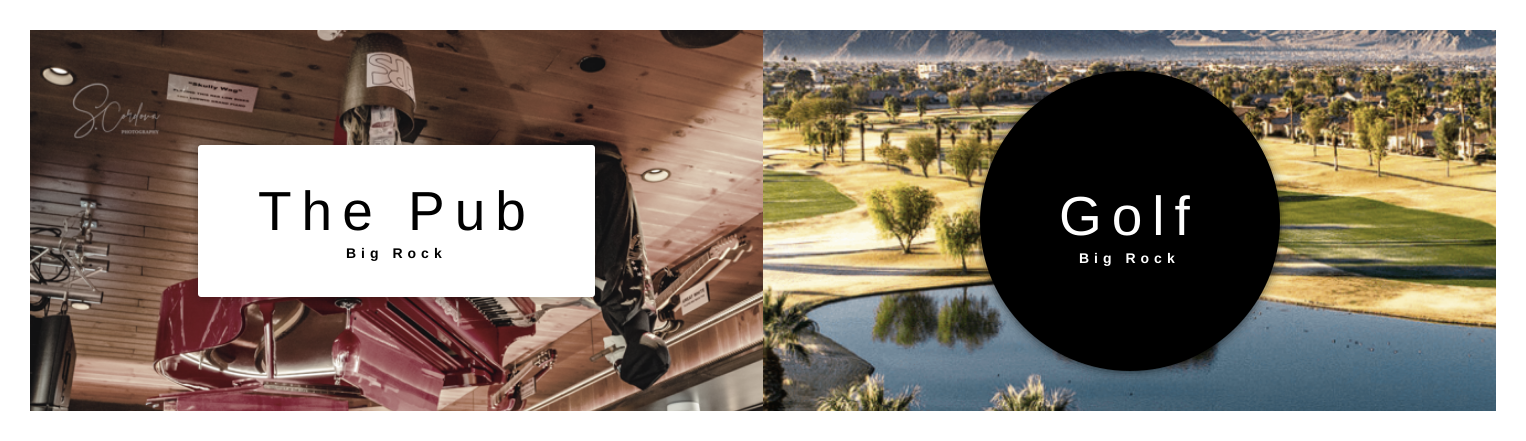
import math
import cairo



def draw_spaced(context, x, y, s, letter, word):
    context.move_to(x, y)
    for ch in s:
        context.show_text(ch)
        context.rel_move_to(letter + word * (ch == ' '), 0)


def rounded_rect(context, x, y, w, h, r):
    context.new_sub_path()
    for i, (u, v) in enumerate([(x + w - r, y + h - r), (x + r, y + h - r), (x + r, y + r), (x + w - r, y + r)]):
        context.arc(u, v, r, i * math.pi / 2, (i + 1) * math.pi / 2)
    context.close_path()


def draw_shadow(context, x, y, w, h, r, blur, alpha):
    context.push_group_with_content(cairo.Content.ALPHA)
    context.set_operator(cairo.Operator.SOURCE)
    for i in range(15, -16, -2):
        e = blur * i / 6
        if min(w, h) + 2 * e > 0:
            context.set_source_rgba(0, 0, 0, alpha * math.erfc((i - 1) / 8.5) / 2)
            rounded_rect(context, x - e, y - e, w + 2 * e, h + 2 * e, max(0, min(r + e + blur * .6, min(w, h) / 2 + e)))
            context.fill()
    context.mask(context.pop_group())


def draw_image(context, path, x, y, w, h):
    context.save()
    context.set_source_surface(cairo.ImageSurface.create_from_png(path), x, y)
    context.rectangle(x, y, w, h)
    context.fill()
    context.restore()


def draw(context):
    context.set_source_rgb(1, 1, 1)
    context.paint()
    draw_image(context, "images/1.png", 30, 30, 733, 381)
    context.set_source_rgb(0, 0, 0)
    draw_shadow(context, 198, 146, 397, 152, 3, 6, 0.31)
    context.set_source_rgb(1, 1, 1)
    rounded_rect(context, 198, 145, 397, 152, 3)
    context.fill()
    draw_image(context, "images/2.png", 763, 30, 733, 381)
    context.set_source_rgb(0, 0, 0)
    draw_shadow(context, 983, 75, 294, 294, 147, 6, 1)
    context.set_source_rgb(0, 0, 0)
    context.arc(1130, 221, 150, 0, 2 * math.pi)
    context.fill()
    context.select_font_face("Liberation Sans")
    context.set_font_size(55)
    draw_spaced(context, 258, 230, "The Pub", 10, 0)
    context.select_font_face("Liberation Sans", cairo.FontSlant.NORMAL, cairo.FontWeight.BOLD)
    context.set_font_size(14)
    draw_spaced(context, 346, 258, "Big Rock", 5, 0)
    context.select_font_face("Liberation Sans")
    context.set_font_size(55)
    context.set_source_rgb(1, 1, 1)
    draw_spaced(context, 1059, 235, "Golf", 10, 0)
    context.select_font_face("Liberation Sans", cairo.FontSlant.NORMAL, cairo.FontWeight.BOLD)
    context.set_font_size(14)
    draw_spaced(context, 1079, 263, "Big Rock", 5, 0)


surface = cairo.ImageSurface(cairo.Format.RGB24, 1526, 441)
context = cairo.Context(surface)
options = cairo.FontOptions()
options.set_hint_metrics(cairo.HintMetrics.OFF)
options.set_hint_style(cairo.HintStyle.NONE)
context.set_font_options(options)
context.set_miter_limit(4)
draw(context)
surface.write_to_png("out.png")
